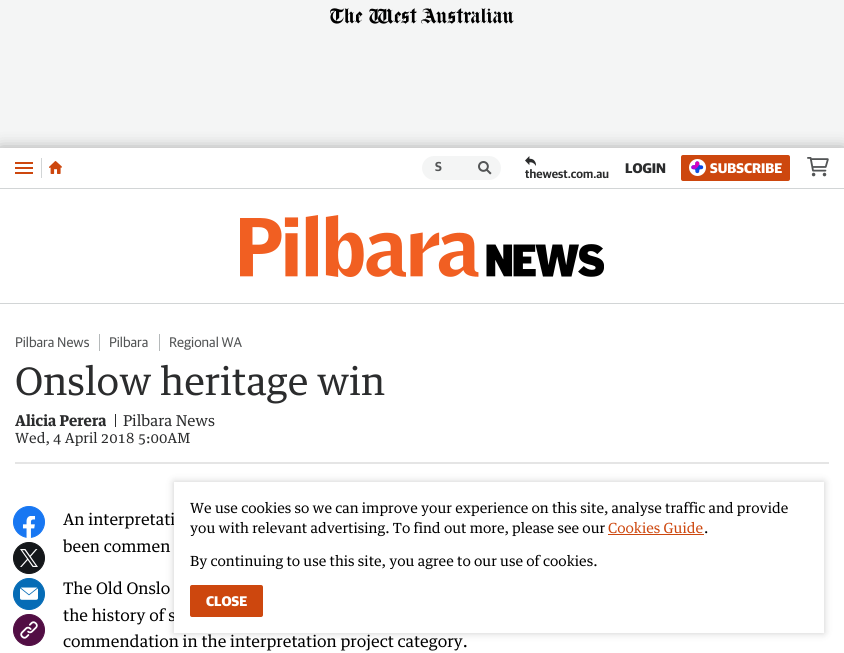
import math
import cairo



def rounded_rect(context, x, y, w, h, r):
    context.new_sub_path()
    for i, (u, v) in enumerate([(x + w - r, y + h - r), (x + r, y + h - r), (x + r, y + r), (x + w - r, y + r)]):
        context.arc(u, v, r, i * math.pi / 2, (i + 1) * math.pi / 2)
    context.close_path()


def draw_shadow(context, x, y, w, h, r, blur, alpha):
    context.push_group_with_content(cairo.Content.ALPHA)
    context.set_operator(cairo.Operator.SOURCE)
    for i in range(15, -16, -2):
        e = blur * i / 6
        if min(w, h) + 2 * e > 0:
            context.set_source_rgba(0, 0, 0, alpha * math.erfc((i - 1) / 8.5) / 2)
            rounded_rect(context, x - e, y - e, w + 2 * e, h + 2 * e, max(0, min(r + e + blur * .6, min(w, h) / 2 + e)))
            context.fill()
    context.mask(context.pop_group())


def draw_image(context, path, x, y, w, h):
    context.save()
    context.set_source_surface(cairo.ImageSurface.create_from_png(path), x, y)
    context.rectangle(x, y, w, h)
    context.fill()
    context.restore()


def draw(context):
    context.set_source_rgb(1, 1, 1)
    context.paint()
    context.set_source_rgb(244 / 255, 245 / 255, 245 / 255)
    context.rectangle(0, 0, 844, 148)
    context.fill()
    draw_image(context, "images/1.png", 330, 8, 184, 16)
    draw_image(context, "images/6.png", 807, 157, 22, 20)
    context.save()
    context.rectangle(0, 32, 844, 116)
    context.clip()
    context.set_source_rgb(0, 0, 0)
    draw_shadow(context, 0, 149, 844, 10, 0, 8, 0.35)
    context.restore()
    context.set_source_rgb(210 / 255, 213 / 255, 214 / 255)
    context.rectangle(0, 188, 844, 1)
    context.fill()
    context.set_source_rgb(205 / 255, 71 / 255, 14 / 255)
    context.rectangle(15, 167, 18, 2)
    context.fill()
    context.rectangle(15, 162, 18, 2)
    context.fill()
    context.rectangle(15, 172, 18, 2)
    context.fill()
    context.set_source_rgb(210 / 255, 213 / 255, 214 / 255)
    context.rectangle(41, 158, 1, 20)
    context.fill()
    draw_image(context, "images/2.png", 49, 161, 13, 13)
    context.set_source_rgb(244 / 255, 245 / 255, 245 / 255)
    rounded_rect(context, 422, 156, 79, 24, 12)
    context.fill()
    draw_image(context, "images/3.png", 478, 161, 14, 14)
    draw_image(context, "images/4.png", 525, 156, 11, 10)
    context.set_source_rgb(205 / 255, 71 / 255, 14 / 255)
    rounded_rect(context, 681, 155, 109, 26, 2)
    context.fill()
    context.set_source_rgb(1, 1, 1)
    context.arc(697.5, 167.5, 8.5, 0, 2 * math.pi)
    context.fill()
    draw_image(context, "images/5.png", 691, 161, 13, 13)
    context.set_source_rgb(210 / 255, 213 / 255, 214 / 255)
    context.rectangle(0, 303, 844, 1)
    context.fill()
    draw_image(context, "images/7.png", 240, 215, 364, 62)
    context.set_source_rgb(181 / 255, 185 / 255, 186 / 255)
    context.rectangle(99, 334, 1, 17)
    context.fill()
    context.rectangle(159, 334, 1, 17)
    context.fill()
    context.set_source_rgb(229 / 255, 229 / 255, 229 / 255)
    context.rectangle(15, 462, 814, 2)
    context.fill()
    context.set_source_rgb(43 / 255, 44 / 255, 45 / 255)
    context.rectangle(115, 414, 1, 13)
    context.fill()
    context.set_source_rgb(24 / 255, 119 / 255, 242 / 255)
    context.arc(29, 522, 15.5, 0, 2 * math.pi)
    context.fill_preserve()
    context.set_line_width(1)
    context.stroke()
    draw_image(context, "images/8.png", 22, 516, 14, 22)
    context.set_source_rgb(20 / 255, 23 / 255, 26 / 255)
    context.arc(29, 558, 15.5, 0, 2 * math.pi)
    context.fill_preserve()
    context.stroke()
    draw_image(context, "images/9.png", 20, 549, 18, 18)
    context.set_source_rgb(6 / 255, 108 / 255, 182 / 255)
    context.arc(29, 594, 15.5, 0, 2 * math.pi)
    context.fill_preserve()
    context.stroke()
    draw_image(context, "images/10.png", 20, 587, 18, 13)
    context.set_source_rgb(82 / 255, 14 / 255, 68 / 255)
    context.arc(29, 630, 15.5, 0, 2 * math.pi)
    context.fill_preserve()
    context.stroke()
    draw_image(context, "images/11.png", 20, 621, 18, 18)
    context.set_source_rgb(0, 0, 0)
    draw_shadow(context, 174, 482, 650, 151, 0, 4, 0.2)
    context.select_font_face("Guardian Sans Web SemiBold")
    context.set_font_size(13)
    context.set_source_rgb(83 / 255, 85 / 255, 86 / 255)
    context.move_to(435, 171)
    context.show_text("S")
    context.set_font_size(12)
    context.set_source_rgb(43 / 255, 44 / 255, 45 / 255)
    context.move_to(525, 178)
    context.show_text("thewest.com.au")
    context.select_font_face("Guardian Sans Web", cairo.FontSlant.NORMAL, cairo.FontWeight.BOLD)
    context.set_font_size(14)
    context.move_to(625, 173)
    context.show_text("LOGIN")
    context.set_source_rgb(1, 1, 1)
    context.move_to(710, 173)
    context.show_text("SUBSCRIBE")
    context.select_font_face("Guardian Sans Web")
    context.set_source_rgb(83 / 255, 85 / 255, 86 / 255)
    context.move_to(15, 347)
    context.show_text("Pilbara News")
    context.move_to(109, 347)
    context.show_text("Pilbara")
    context.move_to(169, 347)
    context.show_text("Regional WA")
    context.select_font_face("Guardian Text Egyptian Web")
    context.set_font_size(38)
    context.set_source_rgb(43 / 255, 44 / 255, 45 / 255)
    context.move_to(15, 395)
    context.show_text("Onslow heritage win")
    context.select_font_face("Guardian Text Egyptian Web", cairo.FontSlant.NORMAL, cairo.FontWeight.BOLD)
    context.set_font_size(15)
    context.move_to(15, 426)
    context.show_text("Alicia Perera")
    context.select_font_face("Guardian Text Egyptian Web")
    context.move_to(123, 426)
    context.show_text("Pilbara News")
    context.save()
    context.rectangle(15, 429, 217, 17)
    context.clip()
    context.set_font_size(14)
    context.move_to(15, 443)
    context.show_text("Wed, 4 April 2018 5:00AM")
    context.restore()
    context.set_font_size(16)
    context.set_source_rgb(0, 0, 0)
    context.move_to(63, 525)
    context.show_text("An interpretati")
    context.move_to(63, 552)
    context.show_text("been commen")
    context.move_to(63, 594)
    context.show_text("The Old Onslo")
    context.move_to(63, 621)
    context.show_text("the history of s")
    context.move_to(63, 647)
    context.show_text("commendation in the interpretation project category.")
    context.set_source_rgb(1, 1, 1)
    context.rectangle(174, 482, 650, 151)
    context.fill()
    context.set_font_size(14)
    context.set_source_rgb(0, 0, 0)
    context.move_to(190, 513)
    context.show_text("We use cookies so we can improve your experience on this site, analyse traffic and provide")
    context.move_to(190, 533)
    context.show_text("you with relevant advertising. To find out more, please see our")
    context.set_source_rgb(205 / 255, 71 / 255, 14 / 255)
    context.move_to(608, 533)
    context.show_text("Cookies Guide")
    context.rectangle(608, 534, 96, 1)
    context.fill()
    context.set_source_rgb(0, 0, 0)
    context.move_to(704, 533)
    context.show_text(".")
    context.move_to(190, 566)
    context.show_text("By continuing to use this site, you agree to our use of cookies.")
    context.set_source_rgb(205 / 255, 71 / 255, 14 / 255)
    rounded_rect(context, 190, 585, 73, 32, 2)
    context.fill()
    context.select_font_face("Guardian Sans Web", cairo.FontSlant.NORMAL, cairo.FontWeight.BOLD)
    context.set_source_rgb(1, 1, 1)
    context.move_to(206, 606)
    context.show_text("CLOSE")


surface = cairo.ImageSurface(cairo.Format.RGB24, 844, 653)
context = cairo.Context(surface)
options = cairo.FontOptions()
options.set_hint_metrics(cairo.HintMetrics.OFF)
options.set_hint_style(cairo.HintStyle.NONE)
context.set_font_options(options)
context.set_miter_limit(4)
draw(context)
surface.write_to_png("out.png")
